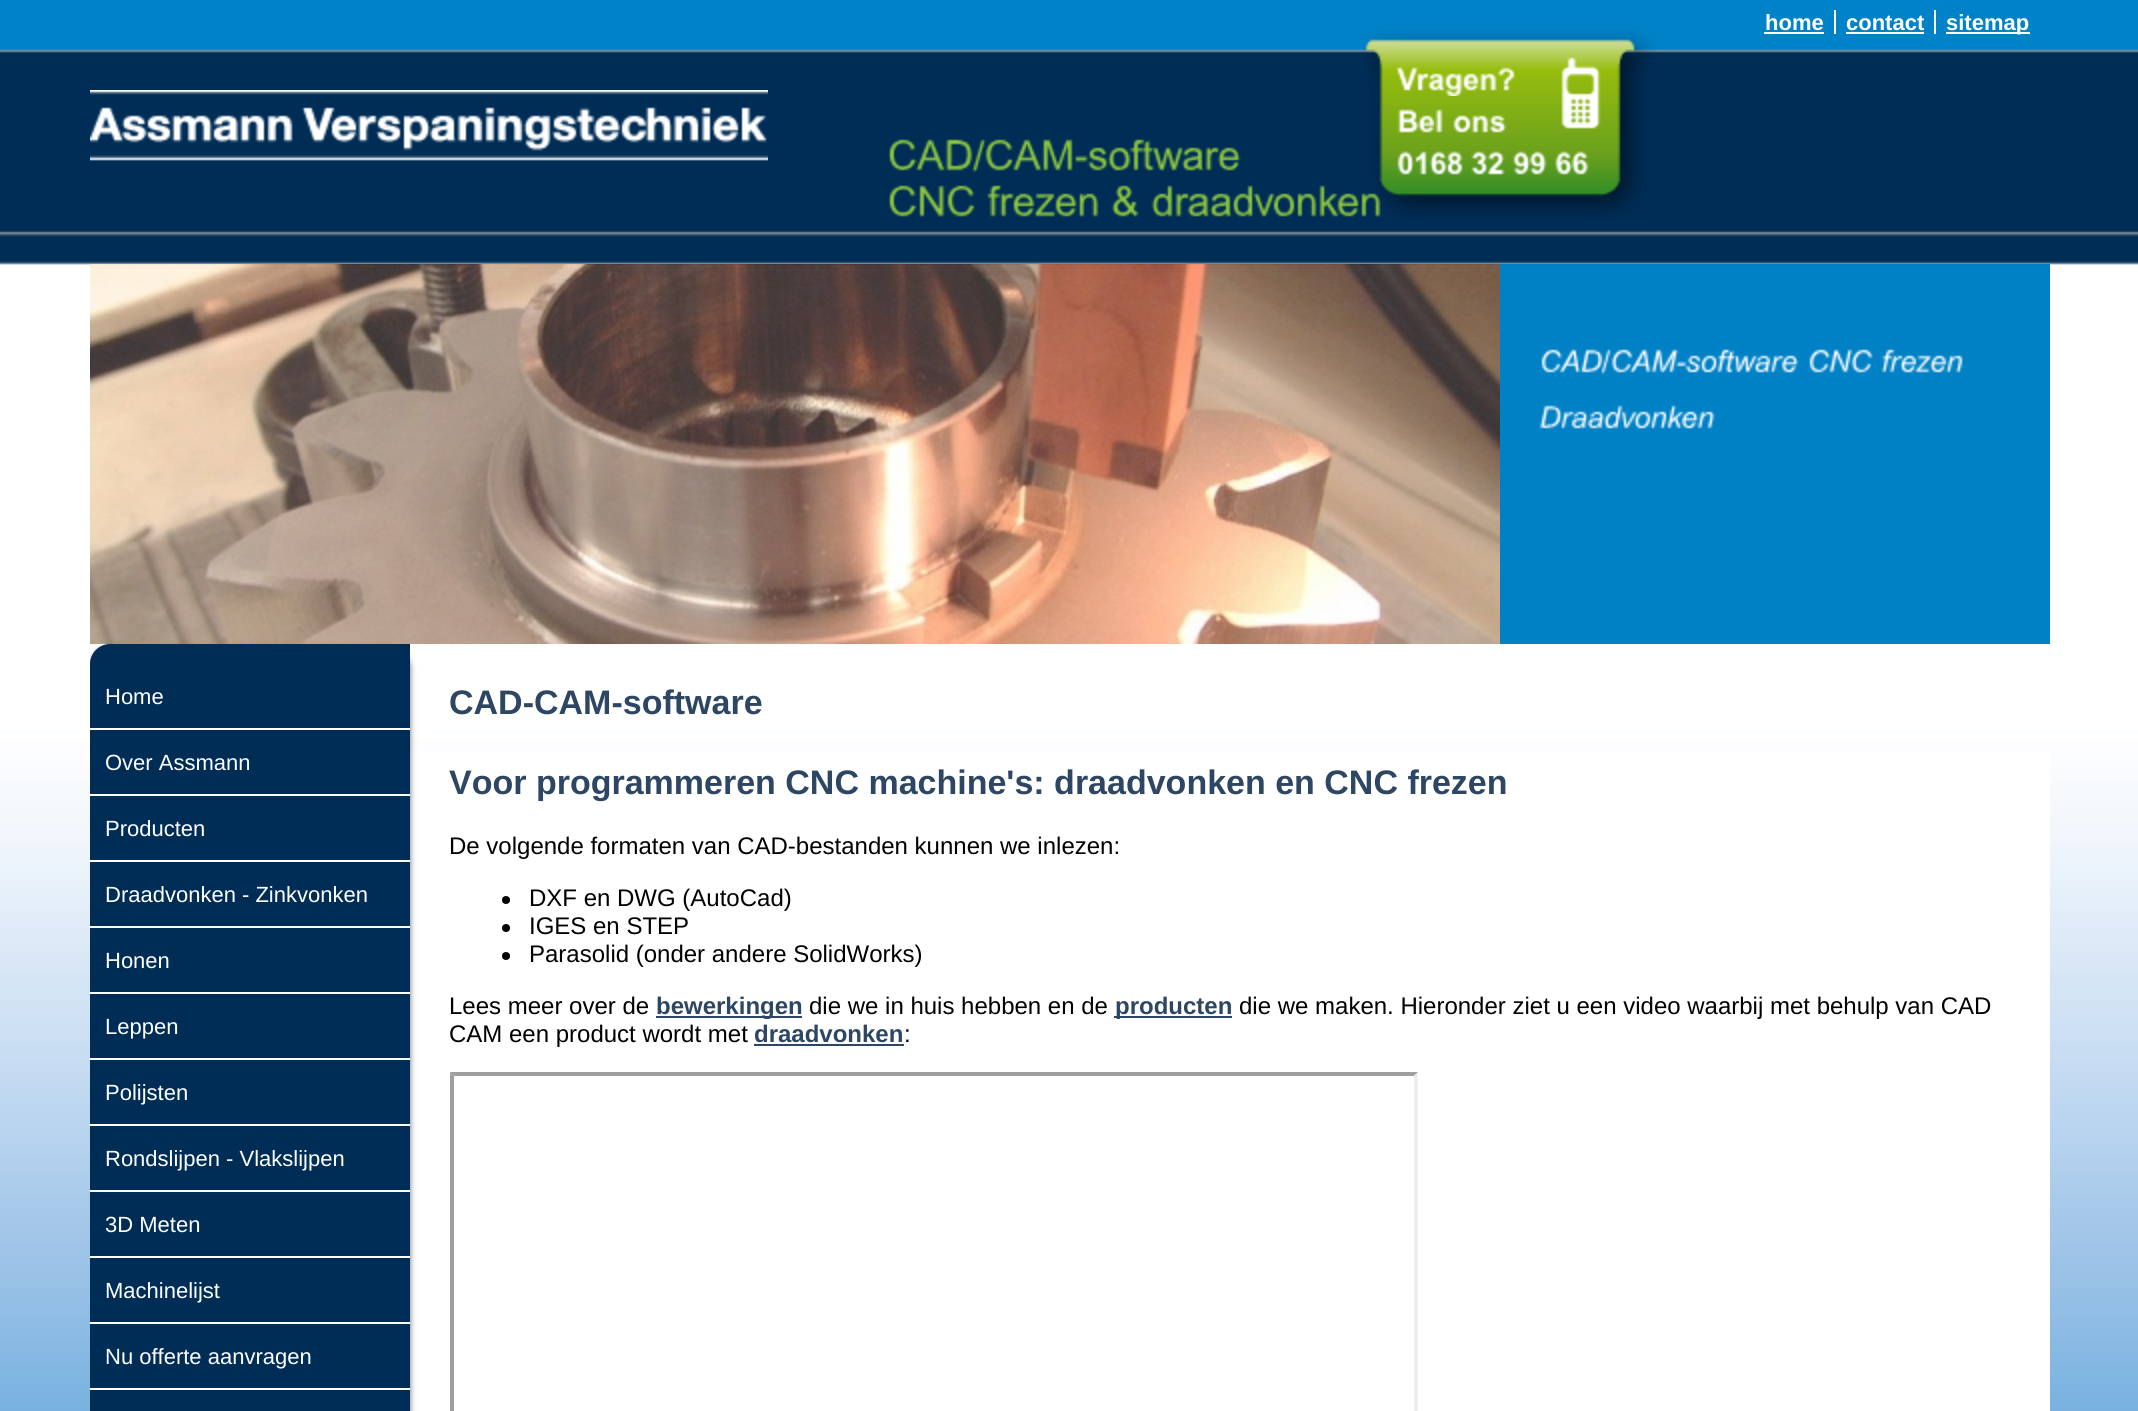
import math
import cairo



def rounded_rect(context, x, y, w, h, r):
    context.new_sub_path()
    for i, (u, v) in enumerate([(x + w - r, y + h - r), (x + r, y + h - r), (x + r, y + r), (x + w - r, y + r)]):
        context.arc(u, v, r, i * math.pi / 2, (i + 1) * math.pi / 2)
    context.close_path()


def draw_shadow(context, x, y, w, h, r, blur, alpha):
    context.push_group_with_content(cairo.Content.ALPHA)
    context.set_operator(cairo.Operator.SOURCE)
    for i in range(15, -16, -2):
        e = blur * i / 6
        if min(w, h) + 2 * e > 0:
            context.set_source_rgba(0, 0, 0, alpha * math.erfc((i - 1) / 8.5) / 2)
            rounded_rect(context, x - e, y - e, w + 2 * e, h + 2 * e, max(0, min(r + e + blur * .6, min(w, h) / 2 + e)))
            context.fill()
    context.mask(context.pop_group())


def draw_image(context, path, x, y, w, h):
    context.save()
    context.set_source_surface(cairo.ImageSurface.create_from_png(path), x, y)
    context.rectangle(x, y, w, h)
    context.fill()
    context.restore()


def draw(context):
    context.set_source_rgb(0, 130 / 255, 200 / 255)
    context.paint()
    draw_image(context, "images/1.png", 0, 49, 2138, 1362)
    context.set_source_rgb(1, 1, 1)
    context.rectangle(1834, 10, 2, 24)
    context.fill()
    context.rectangle(1764, 32, 60, 2)
    context.fill()
    context.rectangle(1934, 10, 2, 24)
    context.fill()
    context.rectangle(1846, 32, 78, 2)
    context.fill()
    context.rectangle(1946, 32, 84, 2)
    context.fill()
    draw_image(context, "images/2.png", 90, 90, 678, 71)
    draw_image(context, "images/15.png", 1151, 185, 230, 32)
    draw_image(context, "images/3.png", 1362, 30, 294, 189)
    draw_image(context, "images/4.png", 1396, 67, 119, 29)
    draw_image(context, "images/5.png", 1397, 109, 46, 24)
    draw_image(context, "images/6.png", 1453, 115, 54, 18)
    draw_image(context, "images/7.png", 1397, 151, 66, 24)
    draw_image(context, "images/8.png", 1471, 151, 34, 24)
    draw_image(context, "images/9.png", 1513, 151, 34, 24)
    draw_image(context, "images/10.png", 1555, 151, 34, 24)
    draw_image(context, "images/11.png", 888, 139, 353, 34)
    draw_image(context, "images/12.png", 888, 185, 87, 32)
    draw_image(context, "images/13.png", 987, 185, 112, 32)
    draw_image(context, "images/14.png", 1111, 185, 28, 32)
    draw_image(context, "images/16.png", 90, 264, 1410, 380)
    context.set_source_rgb(0, 129 / 255, 198 / 255)
    context.rectangle(1500, 264, 550, 380)
    context.fill()
    draw_image(context, "images/17.png", 1541, 349, 258, 26)
    draw_image(context, "images/18.png", 1809, 349, 64, 24)
    draw_image(context, "images/19.png", 1881, 349, 82, 24)
    draw_image(context, "images/20.png", 1539, 405, 176, 24)
    context.set_source_rgb(1, 1, 1)
    context.rectangle(410, 751, 1640, 660)
    context.fill()
    context.save()
    context.rectangle(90, 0, 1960, 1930)
    context.clip()
    context.set_source_rgb(102 / 255, 102 / 255, 102 / 255)
    draw_shadow(context, 90, 648, 320, 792, 20, 3, 1)
    context.restore()
    context.set_source_rgb(0, 45 / 255, 86 / 255)
    context.new_path()
    context.move_to(110, 644)
    context.line_to(410, 644)
    context.line_to(410, 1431)
    context.line_to(110, 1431)
    context.curve_to(99, 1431, 90, 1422, 90, 1411)
    context.line_to(90, 664)
    context.curve_to(90, 653, 99, 644, 110, 644)
    context.close_path()
    context.fill()
    context.set_source_rgb(1, 1, 1)
    context.rectangle(90, 728, 320, 2)
    context.fill()
    context.rectangle(90, 794, 320, 2)
    context.fill()
    context.rectangle(90, 860, 320, 2)
    context.fill()
    context.rectangle(90, 926, 320, 2)
    context.fill()
    context.rectangle(90, 992, 320, 2)
    context.fill()
    context.rectangle(90, 1058, 320, 2)
    context.fill()
    context.rectangle(90, 1124, 320, 2)
    context.fill()
    context.rectangle(90, 1190, 320, 2)
    context.fill()
    context.rectangle(90, 1256, 320, 2)
    context.fill()
    context.rectangle(90, 1322, 320, 2)
    context.fill()
    context.rectangle(90, 1388, 320, 2)
    context.fill()
    context.set_source_rgb(0, 0, 0)
    context.arc(506, 900, 4, 0, 2 * math.pi)
    context.fill()
    context.arc(506, 928, 4, 0, 2 * math.pi)
    context.fill()
    context.arc(506, 956, 4, 0, 2 * math.pi)
    context.fill()
    context.set_source_rgb(45 / 255, 70 / 255, 100 / 255)
    context.rectangle(656, 1016, 146, 2)
    context.fill()
    context.rectangle(1114, 1016, 118, 2)
    context.fill()
    context.rectangle(754, 1044, 150, 2)
    context.fill()
    context.set_source_rgb(159 / 255, 159 / 255, 159 / 255)
    context.new_path()
    context.move_to(450, 1072)
    context.line_to(1418, 1072)
    context.line_to(1414, 1076)
    context.line_to(454, 1076)
    context.close_path()
    context.fill()
    context.new_path()
    context.move_to(450, 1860)
    context.line_to(450, 1072)
    context.line_to(454, 1076)
    context.line_to(454, 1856)
    context.close_path()
    context.fill()
    context.set_source_rgb(238 / 255, 238 / 255, 238 / 255)
    context.new_path()
    context.move_to(1418, 1072)
    context.line_to(1418, 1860)
    context.line_to(1414, 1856)
    context.line_to(1414, 1076)
    context.close_path()
    context.fill()
    context.select_font_face("Liberation Sans", cairo.FontSlant.NORMAL, cairo.FontWeight.BOLD)
    context.set_font_size(22)
    context.set_source_rgb(1, 1, 1)
    context.move_to(1765, 30)
    context.show_text("home")
    context.move_to(1846, 30)
    context.show_text("contact")
    context.move_to(1946, 30)
    context.show_text("sitemap")
    context.select_font_face("Liberation Sans")
    context.move_to(105, 704)
    context.show_text("Home")
    context.move_to(105, 770)
    context.show_text("Over Assmann")
    context.move_to(105, 836)
    context.show_text("Producten")
    context.move_to(105, 902)
    context.show_text("Draadvonken - Zinkvonken")
    context.move_to(105, 968)
    context.show_text("Honen")
    context.move_to(105, 1034)
    context.show_text("Leppen")
    context.move_to(105, 1100)
    context.show_text("Polijsten")
    context.move_to(105, 1166)
    context.show_text("Rondslijpen - Vlakslijpen")
    context.move_to(105, 1232)
    context.show_text("3D Meten")
    context.move_to(105, 1298)
    context.show_text("Machinelijst")
    context.move_to(105, 1364)
    context.show_text("Nu offerte aanvragen")
    context.select_font_face("Liberation Sans", cairo.FontSlant.NORMAL, cairo.FontWeight.BOLD)
    context.set_font_size(34)
    context.set_source_rgb(45 / 255, 70 / 255, 100 / 255)
    context.move_to(449, 714)
    context.show_text("CAD-CAM-software")
    context.move_to(449, 794)
    context.show_text("Voor programmeren CNC machine's: draadvonken en CNC frezen")
    context.select_font_face("Liberation Sans")
    context.set_font_size(24)
    context.set_source_rgb(0, 0, 0)
    context.move_to(449, 854)
    context.show_text("De volgende formaten van CAD-bestanden kunnen we inlezen:")
    context.move_to(529, 906)
    context.show_text("DXF en DWG (AutoCad)")
    context.move_to(529, 934)
    context.show_text("IGES en STEP")
    context.move_to(529, 962)
    context.show_text("Parasolid (onder andere SolidWorks)")
    context.move_to(449, 1014)
    context.show_text("Lees meer over de")
    context.select_font_face("Liberation Sans", cairo.FontSlant.NORMAL, cairo.FontWeight.BOLD)
    context.set_source_rgb(45 / 255, 70 / 255, 100 / 255)
    context.move_to(656, 1014)
    context.show_text("bewerkingen")
    context.select_font_face("Liberation Sans")
    context.set_source_rgb(0, 0, 0)
    context.move_to(809, 1014)
    context.show_text("die we in huis hebben en de")
    context.select_font_face("Liberation Sans", cairo.FontSlant.NORMAL, cairo.FontWeight.BOLD)
    context.set_source_rgb(45 / 255, 70 / 255, 100 / 255)
    context.move_to(1115, 1014)
    context.show_text("producten")
    context.select_font_face("Liberation Sans")
    context.set_source_rgb(0, 0, 0)
    context.move_to(1239, 1014)
    context.show_text("die we maken. Hieronder ziet u een video waarbij met behulp van CAD")
    context.move_to(449, 1042)
    context.show_text("CAM een product wordt met")
    context.select_font_face("Liberation Sans", cairo.FontSlant.NORMAL, cairo.FontWeight.BOLD)
    context.set_source_rgb(45 / 255, 70 / 255, 100 / 255)
    context.move_to(754, 1042)
    context.show_text("draadvonken")
    context.select_font_face("Liberation Sans")
    context.set_source_rgb(0, 0, 0)
    context.move_to(904, 1042)
    context.show_text(":")


surface = cairo.ImageSurface(cairo.Format.RGB24, 2138, 1411)
context = cairo.Context(surface)
options = cairo.FontOptions()
options.set_hint_metrics(cairo.HintMetrics.OFF)
options.set_hint_style(cairo.HintStyle.NONE)
context.set_font_options(options)
context.set_miter_limit(4)
draw(context)
surface.write_to_png("out.png")
